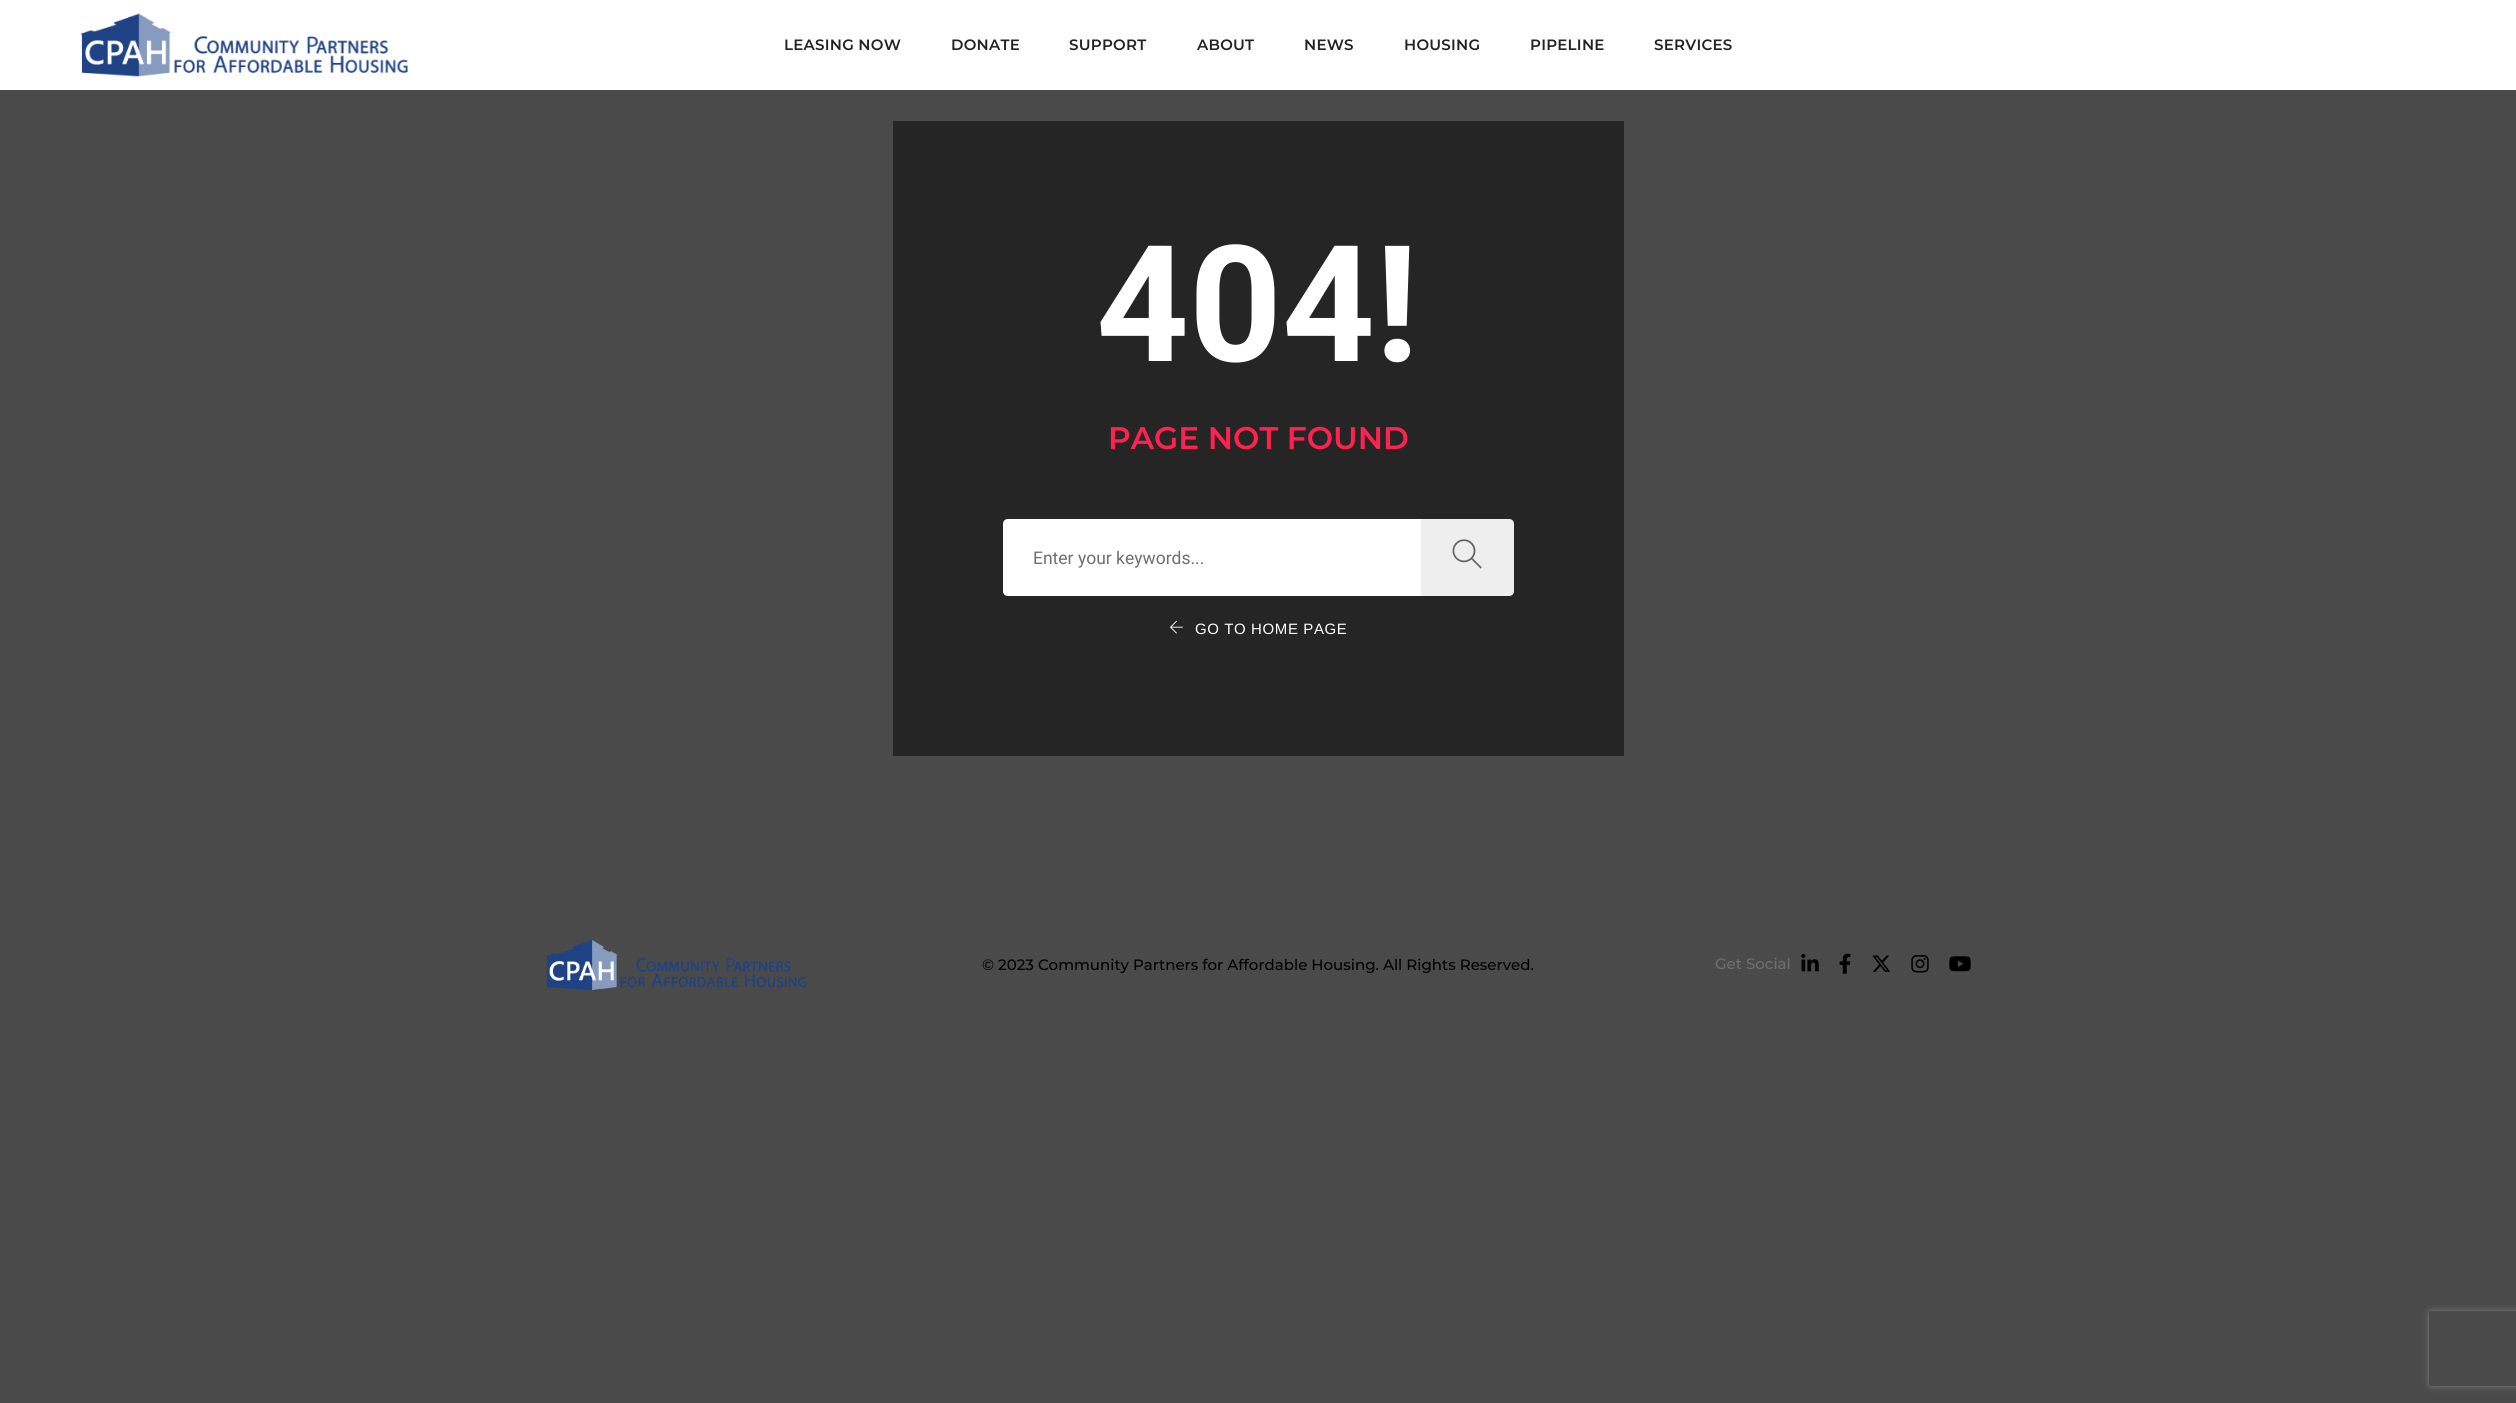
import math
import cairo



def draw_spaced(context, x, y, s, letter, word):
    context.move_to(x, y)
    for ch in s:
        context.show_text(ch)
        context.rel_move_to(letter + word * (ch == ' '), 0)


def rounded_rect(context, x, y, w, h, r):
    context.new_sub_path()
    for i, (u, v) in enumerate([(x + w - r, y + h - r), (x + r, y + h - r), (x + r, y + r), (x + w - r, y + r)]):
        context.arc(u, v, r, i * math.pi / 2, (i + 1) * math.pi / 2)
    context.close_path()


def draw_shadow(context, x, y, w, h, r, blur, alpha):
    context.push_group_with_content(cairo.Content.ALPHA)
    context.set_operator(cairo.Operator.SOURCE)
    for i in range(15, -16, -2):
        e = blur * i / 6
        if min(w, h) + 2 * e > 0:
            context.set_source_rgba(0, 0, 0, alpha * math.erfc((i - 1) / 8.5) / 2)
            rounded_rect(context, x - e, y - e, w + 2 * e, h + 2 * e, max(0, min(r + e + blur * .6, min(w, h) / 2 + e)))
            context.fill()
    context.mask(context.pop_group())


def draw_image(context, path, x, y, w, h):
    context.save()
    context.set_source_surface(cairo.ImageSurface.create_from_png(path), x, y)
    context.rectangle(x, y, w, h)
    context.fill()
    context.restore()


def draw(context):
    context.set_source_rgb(74 / 255, 74 / 255, 74 / 255)
    context.paint()
    context.set_source_rgb(1, 1, 1)
    context.rectangle(0, 0, 2516, 90)
    context.fill()
    draw_image(context, "images/1.png", 81, 13, 327, 64)
    context.set_source_rgb(37 / 255, 37 / 255, 37 / 255)
    context.rectangle(893, 121, 731, 635)
    context.fill()
    context.set_source_rgb(1, 1, 1)
    context.new_path()
    context.move_to(1008, 519)
    context.line_to(1423, 519)
    context.line_to(1423, 596)
    context.line_to(1008, 596)
    context.curve_to(1005, 596, 1003, 594, 1003, 591)
    context.line_to(1003, 524)
    context.curve_to(1003, 521, 1005, 519, 1008, 519)
    context.close_path()
    context.fill()
    context.set_source_rgb(238 / 255, 238 / 255, 238 / 255)
    context.new_path()
    context.move_to(1421, 519)
    context.line_to(1509, 519)
    context.curve_to(1512, 519, 1514, 521, 1514, 524)
    context.line_to(1514, 591)
    context.curve_to(1514, 594, 1512, 596, 1509, 596)
    context.line_to(1421, 596)
    context.close_path()
    context.fill()
    draw_image(context, "images/2.png", 1452, 539, 30, 30)
    draw_image(context, "images/3.png", 1170, 620, 13, 14)
    draw_image(context, "images/4.png", 546, 940, 261, 50)
    draw_image(context, "images/5.png", 1801, 953, 18, 19)
    draw_image(context, "images/6.png", 1839, 953, 12, 21)
    draw_image(context, "images/7.png", 1872, 955, 18, 17)
    draw_image(context, "images/8.png", 1911, 955, 18, 18)
    draw_image(context, "images/9.png", 1949, 956, 22, 16)
    context.save()
    context.set_fill_rule(cairo.FillRule.EVEN_ODD)
    context.new_path()
    context.move_to(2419, 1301)
    context.line_to(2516, 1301)
    context.line_to(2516, 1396)
    context.line_to(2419, 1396)
    context.close_path()
    context.move_to(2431.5, 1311)
    context.line_to(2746.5, 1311)
    context.curve_to(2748, 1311, 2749, 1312, 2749, 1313.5)
    context.line_to(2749, 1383.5)
    context.curve_to(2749, 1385, 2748, 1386, 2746.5, 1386)
    context.line_to(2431.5, 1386)
    context.curve_to(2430, 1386, 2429, 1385, 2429, 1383.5)
    context.line_to(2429, 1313.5)
    context.curve_to(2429, 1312, 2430, 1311, 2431.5, 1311)
    context.close_path()
    context.clip()
    context.set_source_rgb(128 / 255, 128 / 255, 128 / 255)
    draw_shadow(context, 2429, 1311, 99, 75, 2.5, 3, 1)
    context.restore()
    context.select_font_face("Montserrat SemiBold")
    context.set_font_size(15)
    context.set_source_rgb(35 / 255, 35 / 255, 35 / 255)
    draw_spaced(context, 784, 50, "LEASING NOW", 0.25, 0)
    draw_spaced(context, 951, 50, "DONATE", 0.25, 0)
    draw_spaced(context, 1069, 50, "SUPPORT", 0.25, 0)
    draw_spaced(context, 1197, 50, "ABOUT", 0.25, 0)
    draw_spaced(context, 1304, 50, "NEWS", 0.25, 0)
    draw_spaced(context, 1404, 50, "HOUSING", 0.25, 0)
    draw_spaced(context, 1530, 50, "PIPELINE", 0.25, 0)
    draw_spaced(context, 1654, 50, "SERVICES", 0.25, 0)
    context.select_font_face("Roboto", cairo.FontSlant.NORMAL, cairo.FontWeight.BOLD)
    context.set_font_size(162)
    context.set_source_rgb(1, 1, 1)
    context.move_to(1096, 361)
    context.show_text("404!")
    context.select_font_face("Montserrat SemiBold")
    context.set_font_size(31.25)
    context.set_source_rgb(1, 33 / 255, 79 / 255)
    context.move_to(1108, 449)
    context.show_text("PAGE NOT FOUND")
    context.select_font_face("Roboto")
    context.set_font_size(17.5)
    context.set_source_rgb(111 / 255, 111 / 255, 111 / 255)
    context.move_to(1033, 564)
    context.show_text("Enter your keywords...")
    context.select_font_face("Liberation Sans")
    context.set_font_size(15)
    context.set_source_rgb(1, 1, 1)
    draw_spaced(context, 1195, 634, "GO TO HOME PAGE", 0.6, 0)
    context.select_font_face("Montserrat Medium")
    context.set_source_rgb(0, 0, 0)
    context.move_to(982, 970)
    context.show_text("© 2023 Community Partners for Affordable Housing. All Rights Reserved.")
    context.set_source_rgb(111 / 255, 111 / 255, 111 / 255)
    context.move_to(1715, 969)
    context.show_text("Get Social")


surface = cairo.ImageSurface(cairo.Format.RGB24, 2516, 1403)
context = cairo.Context(surface)
options = cairo.FontOptions()
options.set_hint_metrics(cairo.HintMetrics.OFF)
options.set_hint_style(cairo.HintStyle.NONE)
context.set_font_options(options)
context.set_miter_limit(4)
draw(context)
surface.write_to_png("out.png")
